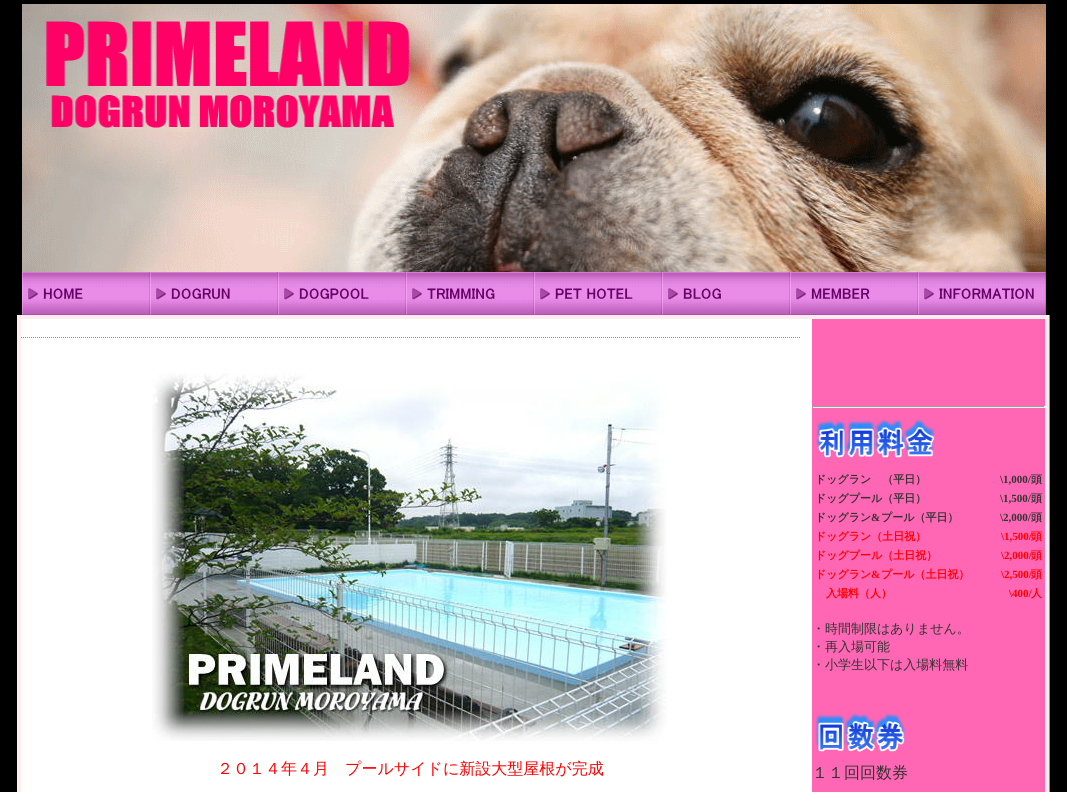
import math
import cairo



def draw_image(context, path, x, y, w, h):
    context.save()
    context.set_source_surface(cairo.ImageSurface.create_from_png(path), x, y)
    context.rectangle(x, y, w, h)
    context.fill()
    context.restore()


def draw(context):
    context.set_source_rgb(0, 0, 0)
    context.paint()
    draw_image(context, "images/1.png", 22, 4, 1024, 268)
    draw_image(context, "images/2.png", 22, 272, 128, 43)
    draw_image(context, "images/3.png", 150, 272, 128, 43)
    draw_image(context, "images/4.png", 278, 272, 128, 43)
    draw_image(context, "images/5.png", 406, 272, 128, 43)
    draw_image(context, "images/6.png", 534, 272, 128, 43)
    draw_image(context, "images/7.png", 662, 272, 128, 43)
    draw_image(context, "images/8.png", 790, 272, 128, 43)
    draw_image(context, "images/9.png", 918, 272, 128, 43)
    context.set_source_rgb(254 / 255, 237 / 255, 239 / 255)
    context.rectangle(17, 315, 1032, 477)
    context.fill()
    context.set_source_rgb(142 / 255, 142 / 255, 142 / 255)
    context.rectangle(1049, 315, 1, 477)
    context.fill()
    context.set_source_rgb(1, 1, 1)
    context.rectangle(21, 319, 791, 473)
    context.fill()
    context.new_path()
    context.move_to(21, 337.5)
    context.line_to(800, 337.5)
    context.set_source_rgb(142 / 255, 142 / 255, 142 / 255)
    context.set_line_width(1)
    context.set_dash([1, 1])
    context.stroke()
    draw_image(context, "images/10.png", 152, 373, 515, 368)
    context.set_source_rgb(1, 102 / 255, 179 / 255)
    context.rectangle(812, 319, 233, 473)
    context.fill()
    context.set_source_rgb(159 / 255, 159 / 255, 159 / 255)
    context.rectangle(812, 406, 233, 1)
    context.fill()
    context.set_source_rgb(238 / 255, 238 / 255, 238 / 255)
    context.rectangle(1044, 406, 1, 2)
    context.fill()
    context.rectangle(812, 407, 233, 1)
    context.fill()
    context.set_source_rgb(159 / 255, 159 / 255, 159 / 255)
    context.rectangle(812, 406, 1, 2)
    context.fill()
    draw_image(context, "images/11.png", 815, 419, 120, 39)
    draw_image(context, "images/12.png", 815, 713, 91, 39)
    context.select_font_face("WenQuanYi Zen Hei Medium")
    context.set_font_size(16)
    context.set_source_rgb(1, 0, 0)
    context.move_to(217, 774)
    context.show_text("２０１４年４月　プールサイドに新設大型屋根が完成")
    context.select_font_face("WenQuanYi Zen Hei", cairo.FontSlant.NORMAL, cairo.FontWeight.BOLD)
    context.set_font_size(11)
    context.set_source_rgb(51 / 255, 51 / 255, 51 / 255)
    context.move_to(815, 483)
    context.show_text("ドッグラン　（平日）")
    context.select_font_face("Liberation Serif", cairo.FontSlant.NORMAL, cairo.FontWeight.BOLD)
    context.move_to(1000, 483)
    context.show_text("\\1,000/")
    context.select_font_face("WenQuanYi Zen Hei", cairo.FontSlant.NORMAL, cairo.FontWeight.BOLD)
    context.move_to(1031, 483)
    context.show_text("頭")
    context.move_to(815, 502)
    context.show_text("ドッグプール（平日）")
    context.select_font_face("Liberation Serif", cairo.FontSlant.NORMAL, cairo.FontWeight.BOLD)
    context.move_to(1000, 502)
    context.show_text("\\1,500/")
    context.select_font_face("WenQuanYi Zen Hei", cairo.FontSlant.NORMAL, cairo.FontWeight.BOLD)
    context.move_to(1031, 502)
    context.show_text("頭")
    context.move_to(815, 521)
    context.show_text("ドッグラン")
    context.select_font_face("Liberation Serif", cairo.FontSlant.NORMAL, cairo.FontWeight.BOLD)
    context.move_to(871, 521)
    context.show_text("&")
    context.select_font_face("WenQuanYi Zen Hei", cairo.FontSlant.NORMAL, cairo.FontWeight.BOLD)
    context.move_to(881, 521)
    context.show_text("プール（平日）")
    context.select_font_face("Liberation Serif", cairo.FontSlant.NORMAL, cairo.FontWeight.BOLD)
    context.move_to(1000, 521)
    context.show_text("\\2,000/")
    context.select_font_face("WenQuanYi Zen Hei", cairo.FontSlant.NORMAL, cairo.FontWeight.BOLD)
    context.move_to(1031, 521)
    context.show_text("頭")
    context.set_source_rgb(1, 0, 0)
    context.move_to(815, 540)
    context.show_text("ドッグラン（土日祝）")
    context.select_font_face("Liberation Serif", cairo.FontSlant.NORMAL, cairo.FontWeight.BOLD)
    context.move_to(1001, 540)
    context.show_text("\\1,500/")
    context.select_font_face("WenQuanYi Zen Hei", cairo.FontSlant.NORMAL, cairo.FontWeight.BOLD)
    context.move_to(1031, 540)
    context.show_text("頭")
    context.move_to(815, 559)
    context.show_text("ドッグプール（土日祝）")
    context.select_font_face("Liberation Serif", cairo.FontSlant.NORMAL, cairo.FontWeight.BOLD)
    context.move_to(1001, 559)
    context.show_text("\\2,000/")
    context.select_font_face("WenQuanYi Zen Hei", cairo.FontSlant.NORMAL, cairo.FontWeight.BOLD)
    context.move_to(1031, 559)
    context.show_text("頭")
    context.move_to(815, 578)
    context.show_text("ドッグラン")
    context.select_font_face("Liberation Serif", cairo.FontSlant.NORMAL, cairo.FontWeight.BOLD)
    context.move_to(871, 578)
    context.show_text("&")
    context.select_font_face("WenQuanYi Zen Hei", cairo.FontSlant.NORMAL, cairo.FontWeight.BOLD)
    context.move_to(881, 578)
    context.show_text("プール（土日祝）")
    context.select_font_face("Liberation Serif", cairo.FontSlant.NORMAL, cairo.FontWeight.BOLD)
    context.move_to(1001, 578)
    context.show_text("\\2,500/")
    context.select_font_face("WenQuanYi Zen Hei", cairo.FontSlant.NORMAL, cairo.FontWeight.BOLD)
    context.move_to(1031, 578)
    context.show_text("頭")
    context.move_to(826, 597)
    context.show_text("入場料（人）")
    context.select_font_face("Liberation Serif", cairo.FontSlant.NORMAL, cairo.FontWeight.BOLD)
    context.move_to(1009, 597)
    context.show_text("\\400/")
    context.select_font_face("WenQuanYi Zen Hei", cairo.FontSlant.NORMAL, cairo.FontWeight.BOLD)
    context.move_to(1031, 597)
    context.show_text("人")
    context.select_font_face("WenQuanYi Zen Hei Medium")
    context.set_font_size(13)
    context.set_source_rgb(51 / 255, 51 / 255, 51 / 255)
    context.move_to(812, 633)
    context.show_text("・時間制限はありません。")
    context.move_to(812, 651)
    context.show_text("・再入場可能")
    context.move_to(812, 669)
    context.show_text("・小学生以下は入場料無料")
    context.set_font_size(16)
    context.move_to(812, 778)
    context.show_text("１１回回数券")


surface = cairo.ImageSurface(cairo.Format.RGB24, 1067, 792)
context = cairo.Context(surface)
options = cairo.FontOptions()
options.set_hint_metrics(cairo.HintMetrics.OFF)
options.set_hint_style(cairo.HintStyle.NONE)
context.set_font_options(options)
context.set_miter_limit(4)
draw(context)
surface.write_to_png("out.png")
